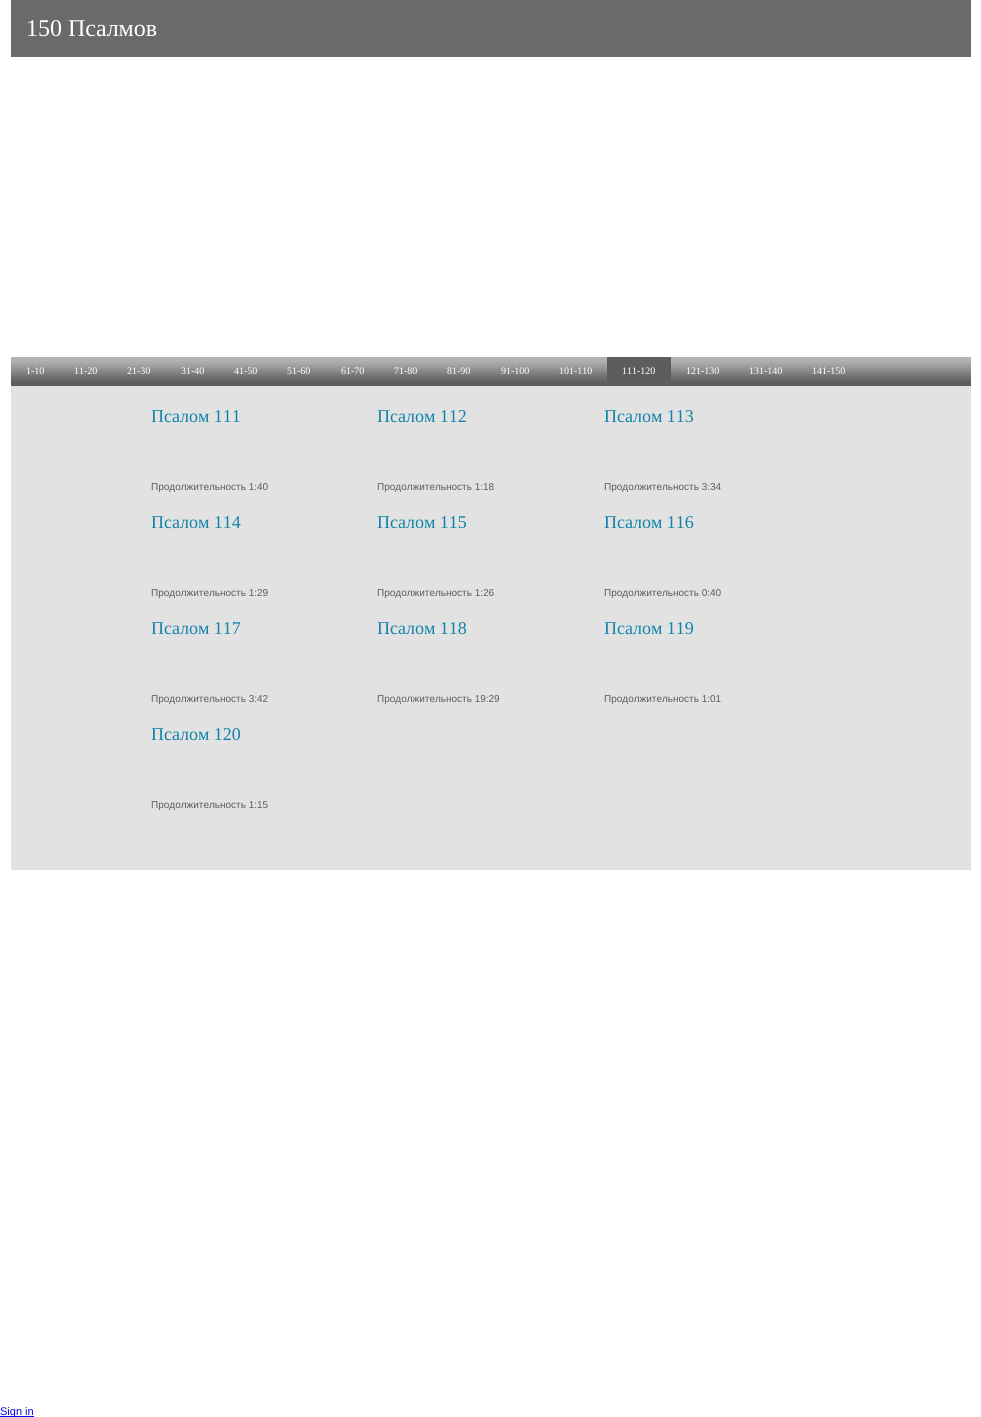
import math
import cairo



def draw_image(context, path, x, y, w, h):
    context.save()
    context.set_source_surface(cairo.ImageSurface.create_from_png(path), x, y)
    context.rectangle(x, y, w, h)
    context.fill()
    context.restore()


def draw(context):
    context.set_source_rgb(1, 1, 1)
    context.paint()
    context.set_source_rgb(106 / 255, 106 / 255, 106 / 255)
    context.rectangle(11, 0, 960, 57)
    context.fill()
    draw_image(context, "images/1.png", 11, 357, 960, 29)
    context.set_source_rgb(94 / 255, 93 / 255, 93 / 255)
    context.rectangle(607, 357, 64, 25)
    context.fill()
    context.set_source_rgb(226 / 255, 226 / 255, 226 / 255)
    context.rectangle(11, 386, 960, 484)
    context.fill()
    context.set_source_rgb(0, 0, 238 / 255)
    context.rectangle(0, 1416, 34, 1)
    context.fill()
    context.select_font_face("Liberation Serif")
    context.set_font_size(24)
    context.set_source_rgb(1, 1, 1)
    context.move_to(26, 36)
    context.show_text("150 Псалмов")
    context.set_font_size(10)
    context.move_to(26, 374)
    context.show_text("1-10")
    context.move_to(74, 374)
    context.show_text("11-20")
    context.move_to(127, 374)
    context.show_text("21-30")
    context.move_to(181, 374)
    context.show_text("31-40")
    context.move_to(234, 374)
    context.show_text("41-50")
    context.move_to(287, 374)
    context.show_text("51-60")
    context.move_to(341, 374)
    context.show_text("61-70")
    context.move_to(394, 374)
    context.show_text("71-80")
    context.move_to(447, 374)
    context.show_text("81-90")
    context.move_to(501, 374)
    context.show_text("91-100")
    context.move_to(559, 374)
    context.show_text("101-110")
    context.move_to(622, 374)
    context.show_text("111-120")
    context.move_to(686, 374)
    context.show_text("121-130")
    context.move_to(749, 374)
    context.show_text("131-140")
    context.move_to(812, 374)
    context.show_text("141-150")
    context.set_font_size(18)
    context.set_source_rgb(17 / 255, 131 / 255, 168 / 255)
    context.move_to(151, 422)
    context.show_text("Псалом 111")
    context.select_font_face("Liberation Sans")
    context.set_font_size(10)
    context.set_source_rgb(93 / 255, 91 / 255, 91 / 255)
    context.move_to(151, 490)
    context.show_text("Продолжительность 1:40")
    context.select_font_face("Liberation Serif")
    context.set_font_size(18)
    context.set_source_rgb(17 / 255, 131 / 255, 168 / 255)
    context.move_to(377, 422)
    context.show_text("Псалом 112")
    context.select_font_face("Liberation Sans")
    context.set_font_size(10)
    context.set_source_rgb(93 / 255, 91 / 255, 91 / 255)
    context.move_to(377, 490)
    context.show_text("Продолжительность 1:18")
    context.select_font_face("Liberation Serif")
    context.set_font_size(18)
    context.set_source_rgb(17 / 255, 131 / 255, 168 / 255)
    context.move_to(604, 422)
    context.show_text("Псалом 113")
    context.select_font_face("Liberation Sans")
    context.set_font_size(10)
    context.set_source_rgb(93 / 255, 91 / 255, 91 / 255)
    context.move_to(604, 490)
    context.show_text("Продолжительность 3:34")
    context.select_font_face("Liberation Serif")
    context.set_font_size(18)
    context.set_source_rgb(17 / 255, 131 / 255, 168 / 255)
    context.move_to(151, 528)
    context.show_text("Псалом 114")
    context.select_font_face("Liberation Sans")
    context.set_font_size(10)
    context.set_source_rgb(93 / 255, 91 / 255, 91 / 255)
    context.move_to(151, 596)
    context.show_text("Продолжительность 1:29")
    context.select_font_face("Liberation Serif")
    context.set_font_size(18)
    context.set_source_rgb(17 / 255, 131 / 255, 168 / 255)
    context.move_to(377, 528)
    context.show_text("Псалом 115")
    context.select_font_face("Liberation Sans")
    context.set_font_size(10)
    context.set_source_rgb(93 / 255, 91 / 255, 91 / 255)
    context.move_to(377, 596)
    context.show_text("Продолжительность 1:26")
    context.select_font_face("Liberation Serif")
    context.set_font_size(18)
    context.set_source_rgb(17 / 255, 131 / 255, 168 / 255)
    context.move_to(604, 528)
    context.show_text("Псалом 116")
    context.select_font_face("Liberation Sans")
    context.set_font_size(10)
    context.set_source_rgb(93 / 255, 91 / 255, 91 / 255)
    context.move_to(604, 596)
    context.show_text("Продолжительность 0:40")
    context.select_font_face("Liberation Serif")
    context.set_font_size(18)
    context.set_source_rgb(17 / 255, 131 / 255, 168 / 255)
    context.move_to(151, 634)
    context.show_text("Псалом 117")
    context.select_font_face("Liberation Sans")
    context.set_font_size(10)
    context.set_source_rgb(93 / 255, 91 / 255, 91 / 255)
    context.move_to(151, 702)
    context.show_text("Продолжительность 3:42")
    context.select_font_face("Liberation Serif")
    context.set_font_size(18)
    context.set_source_rgb(17 / 255, 131 / 255, 168 / 255)
    context.move_to(377, 634)
    context.show_text("Псалом 118")
    context.select_font_face("Liberation Sans")
    context.set_font_size(10)
    context.set_source_rgb(93 / 255, 91 / 255, 91 / 255)
    context.move_to(377, 702)
    context.show_text("Продолжительность 19:29")
    context.select_font_face("Liberation Serif")
    context.set_font_size(18)
    context.set_source_rgb(17 / 255, 131 / 255, 168 / 255)
    context.move_to(604, 634)
    context.show_text("Псалом 119")
    context.select_font_face("Liberation Sans")
    context.set_font_size(10)
    context.set_source_rgb(93 / 255, 91 / 255, 91 / 255)
    context.move_to(604, 702)
    context.show_text("Продолжительность 1:01")
    context.select_font_face("Liberation Serif")
    context.set_font_size(18)
    context.set_source_rgb(17 / 255, 131 / 255, 168 / 255)
    context.move_to(151, 740)
    context.show_text("Псалом 120")
    context.select_font_face("Liberation Sans")
    context.set_font_size(10)
    context.set_source_rgb(93 / 255, 91 / 255, 91 / 255)
    context.move_to(151, 808)
    context.show_text("Продолжительность 1:15")
    context.set_font_size(11)
    context.set_source_rgb(0, 0, 238 / 255)
    context.move_to(0, 1415)
    context.show_text("Sign in")


surface = cairo.ImageSurface(cairo.Format.RGB24, 981, 1417)
context = cairo.Context(surface)
options = cairo.FontOptions()
options.set_hint_metrics(cairo.HintMetrics.OFF)
options.set_hint_style(cairo.HintStyle.NONE)
context.set_font_options(options)
context.set_miter_limit(4)
draw(context)
surface.write_to_png("out.png")
